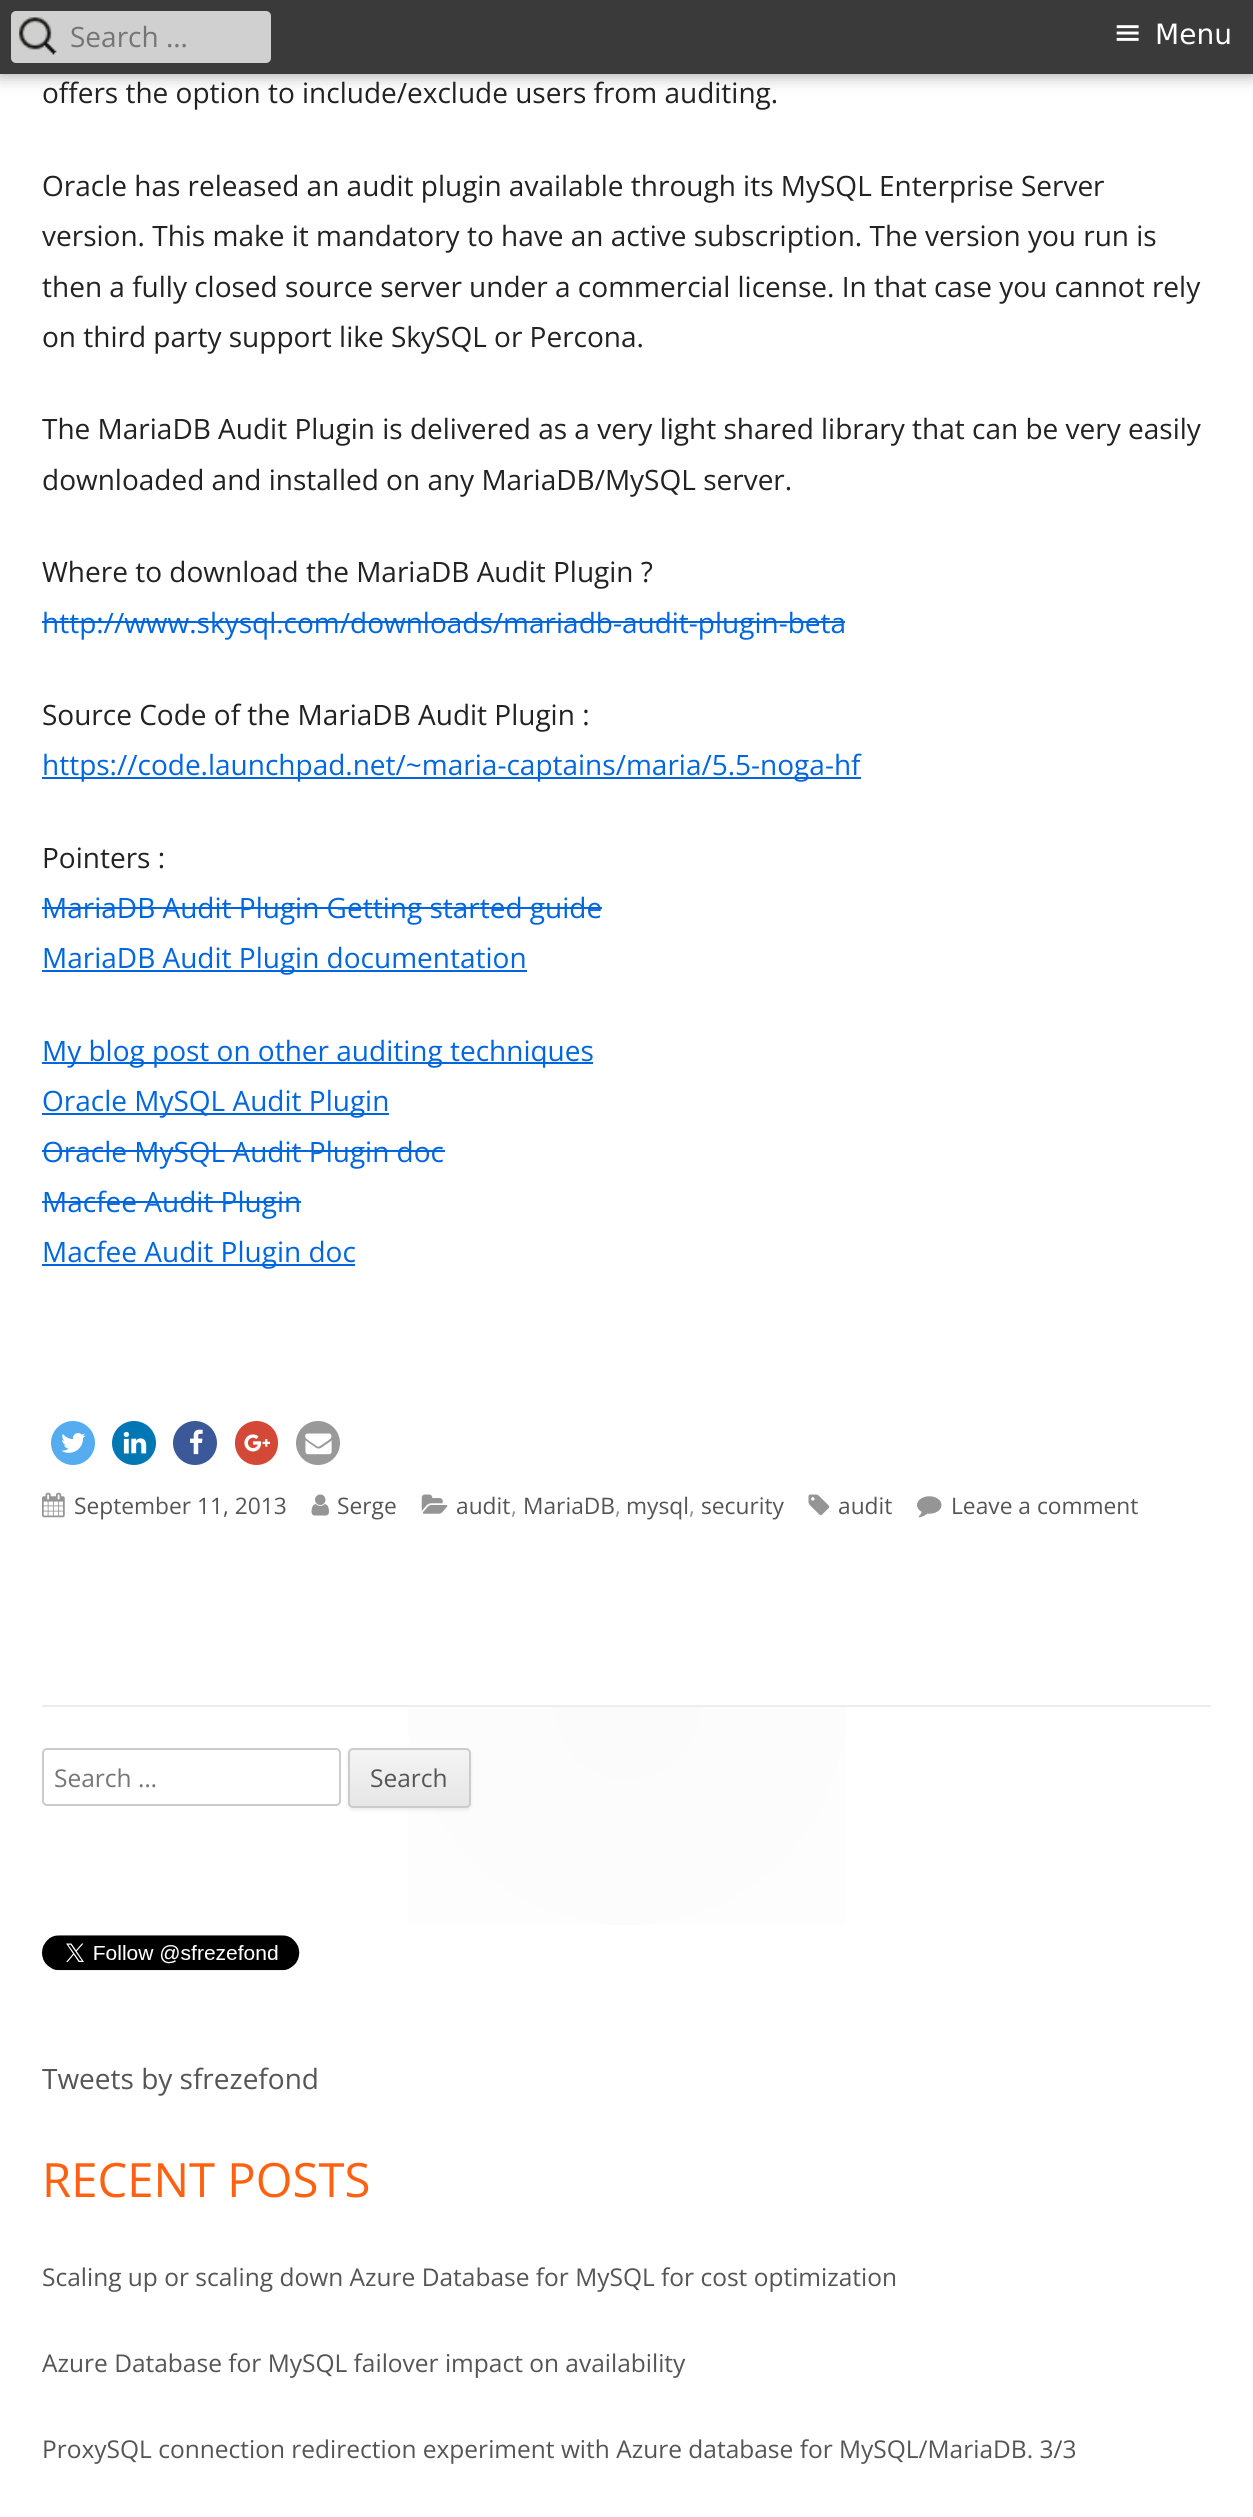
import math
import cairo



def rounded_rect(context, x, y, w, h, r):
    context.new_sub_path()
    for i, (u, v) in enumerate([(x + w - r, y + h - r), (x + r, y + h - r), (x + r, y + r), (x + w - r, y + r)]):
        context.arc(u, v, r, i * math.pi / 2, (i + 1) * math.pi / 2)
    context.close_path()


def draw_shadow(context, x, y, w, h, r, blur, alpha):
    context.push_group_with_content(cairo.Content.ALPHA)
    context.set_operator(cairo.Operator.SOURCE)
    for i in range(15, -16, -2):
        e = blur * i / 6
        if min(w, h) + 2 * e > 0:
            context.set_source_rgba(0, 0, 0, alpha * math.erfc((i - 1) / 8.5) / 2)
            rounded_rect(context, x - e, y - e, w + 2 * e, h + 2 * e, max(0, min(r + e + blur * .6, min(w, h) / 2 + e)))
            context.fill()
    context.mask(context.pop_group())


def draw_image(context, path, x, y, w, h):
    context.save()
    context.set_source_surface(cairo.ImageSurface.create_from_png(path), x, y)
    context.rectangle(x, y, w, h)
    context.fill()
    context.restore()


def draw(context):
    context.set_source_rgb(1, 1, 1)
    context.paint()
    context.set_source_rgb(0, 0, 0)
    draw_shadow(context, 0, 0, 1253, 74, 0, 9, 0.4)
    context.set_source_rgb(58 / 255, 58 / 255, 58 / 255)
    context.rectangle(0, 0, 1253, 74)
    context.fill()
    context.set_source_rgb(208 / 255, 208 / 255, 208 / 255)
    rounded_rect(context, 11, 11, 260, 52, 5)
    context.fill()
    draw_image(context, "images/1.png", 19, 17, 38, 38)
    context.set_source_rgb(0, 102 / 255, 223 / 255)
    context.rectangle(42, 621, 803, 2)
    context.fill()
    context.rectangle(42, 777, 819, 2)
    context.fill()
    context.rectangle(42, 907, 560, 2)
    context.fill()
    context.rectangle(42, 970, 485, 2)
    context.fill()
    context.rectangle(42, 1062, 551, 2)
    context.fill()
    context.rectangle(42, 1113, 347, 2)
    context.fill()
    context.rectangle(42, 1150, 403, 2)
    context.fill()
    context.rectangle(42, 1201, 259, 2)
    context.fill()
    context.rectangle(42, 1264, 313, 2)
    context.fill()
    context.set_source_rgb(85 / 255, 172 / 255, 238 / 255)
    context.arc(73, 1443, 22, 0, 2 * math.pi)
    context.fill()
    draw_image(context, "images/2.png", 61, 1433, 25, 20)
    context.set_source_rgb(0, 119 / 255, 181 / 255)
    context.arc(134, 1443, 22, 0, 2 * math.pi)
    context.fill()
    draw_image(context, "images/3.png", 123, 1431, 24, 23)
    context.set_source_rgb(59 / 255, 89 / 255, 152 / 255)
    context.arc(195, 1443, 22, 0, 2 * math.pi)
    context.fill()
    draw_image(context, "images/4.png", 190, 1429, 13, 26)
    context.set_source_rgb(211 / 255, 72 / 255, 54 / 255)
    rounded_rect(context, 235, 1421, 43, 44, 21.5)
    context.fill()
    draw_image(context, "images/5.png", 244, 1434, 27, 18)
    context.set_source_rgb(153 / 255, 153 / 255, 153 / 255)
    context.arc(318, 1443, 22, 0, 2 * math.pi)
    context.fill()
    draw_image(context, "images/6.png", 305, 1433, 27, 22)
    draw_image(context, "images/7.png", 42, 1492, 23, 26)
    draw_image(context, "images/8.png", 311, 1494, 18, 22)
    draw_image(context, "images/9.png", 421, 1494, 27, 20)
    draw_image(context, "images/10.png", 808, 1494, 22, 22)
    draw_image(context, "images/11.png", 917, 1496, 25, 22)
    gradient = cairo.RadialGradient(627, 1706, 0, 627, 1706, 585)
    gradient.add_color_stop_rgba(0, 251 / 255, 251 / 255, 251 / 255, 1)
    gradient.add_color_stop_rgba(1, 1, 1, 1, 1)
    context.set_source(gradient)
    context.rectangle(408, 1707, 438, 218)
    context.fill()
    context.set_source_rgb(237 / 255, 237 / 255, 237 / 255)
    context.rectangle(42, 1705, 1169, 2)
    context.fill()
    rounded_rect(context, 43, 1749, 297, 56, 4)
    context.set_source_rgb(204 / 255, 204 / 255, 204 / 255)
    context.stroke()
    context.set_source_rgb(64 / 255, 64 / 255, 64 / 255)
    draw_shadow(context, 348, 1750, 123, 60, 5, 2, 0.1)
    context.save()
    rounded_rect(context, 348, 1748, 123, 60, 5)
    context.clip()
    gradient = cairo.LinearGradient(410, 1750, 410, 1806)
    gradient.add_color_stop_rgba(0, 244 / 255, 244 / 255, 244 / 255, 1)
    gradient.add_color_stop_rgba(1, 230 / 255, 230 / 255, 230 / 255, 1)
    context.set_source(gradient)
    context.rectangle(348, 1750, 123, 56)
    context.fill()
    context.restore()
    rounded_rect(context, 349, 1749, 121, 58, 4)
    context.set_source_rgb(204 / 255, 204 / 255, 204 / 255)
    context.stroke()
    draw_image(context, "images/12.png", 42, 1935, 258, 36)
    context.select_font_face("Open Sans")
    context.set_font_size(28)
    context.set_source_rgb(117 / 255, 117 / 255, 117 / 255)
    context.move_to(70, 47)
    context.show_text("Search …")
    context.select_font_face("DejaVu Sans")
    context.set_font_size(35)
    context.set_source_rgb(1, 1, 1)
    context.move_to(1113, 44)
    context.show_text("≡")
    context.set_font_size(28)
    context.move_to(1155, 44)
    context.show_text("Menu")
    context.select_font_face("Open Sans")
    context.set_source_rgb(34 / 255, 34 / 255, 34 / 255)
    context.move_to(42, 103)
    context.show_text("offers the option to include/exclude users from auditing.")
    context.move_to(42, 196)
    context.show_text("Oracle has released an audit plugin available through its MySQL Enterprise Server")
    context.move_to(42, 246)
    context.show_text("version. This make it mandatory to have an active subscription. The version you run is")
    context.move_to(42, 297)
    context.show_text("then a fully closed source server under a commercial license. In that case you cannot rely")
    context.move_to(42, 347)
    context.show_text("on third party support like SkySQL or Percona.")
    context.move_to(42, 439)
    context.show_text("The MariaDB Audit Plugin is delivered as a very light shared library that can be very easily")
    context.move_to(42, 490)
    context.show_text("downloaded and installed on any MariaDB/MySQL server.")
    context.move_to(42, 582)
    context.show_text("Where to download the MariaDB Audit Plugin ?")
    context.set_source_rgb(0, 102 / 255, 223 / 255)
    context.move_to(42, 633)
    context.show_text("http://www.skysql.com/downloads/mariadb-audit-plugin-beta")
    context.set_source_rgb(34 / 255, 34 / 255, 34 / 255)
    context.move_to(42, 725)
    context.show_text("Source Code of the MariaDB Audit Plugin :")
    context.set_source_rgb(0, 102 / 255, 223 / 255)
    context.move_to(42, 775)
    context.show_text("https://code.launchpad.net/~maria-captains/maria/5.5-noga-hf")
    context.set_source_rgb(34 / 255, 34 / 255, 34 / 255)
    context.move_to(42, 868)
    context.show_text("Pointers :")
    context.set_source_rgb(0, 102 / 255, 223 / 255)
    context.move_to(42, 918)
    context.show_text("MariaDB Audit Plugin Getting started guide")
    context.move_to(42, 968)
    context.show_text("MariaDB Audit Plugin documentation")
    context.move_to(42, 1061)
    context.show_text("My blog post on other auditing techniques")
    context.move_to(42, 1111)
    context.show_text("Oracle MySQL Audit Plugin")
    context.move_to(42, 1162)
    context.show_text("Oracle MySQL Audit Plugin doc")
    context.move_to(42, 1212)
    context.show_text("Macfee Audit Plugin")
    context.move_to(42, 1262)
    context.show_text("Macfee Audit Plugin doc")
    context.set_font_size(22.75)
    context.set_source_rgb(85 / 255, 85 / 255, 85 / 255)
    context.move_to(74, 1514)
    context.show_text("September 11, 2013")
    context.move_to(337, 1514)
    context.show_text("Serge")
    context.move_to(456, 1514)
    context.show_text("audit")
    context.set_source_rgb(149 / 255, 149 / 255, 149 / 255)
    context.move_to(511, 1514)
    context.show_text(",")
    context.set_source_rgb(85 / 255, 85 / 255, 85 / 255)
    context.move_to(523, 1514)
    context.show_text("MariaDB")
    context.set_source_rgb(149 / 255, 149 / 255, 149 / 255)
    context.move_to(615, 1514)
    context.show_text(",")
    context.set_source_rgb(85 / 255, 85 / 255, 85 / 255)
    context.move_to(626, 1514)
    context.show_text("mysql")
    context.set_source_rgb(149 / 255, 149 / 255, 149 / 255)
    context.move_to(689, 1514)
    context.show_text(",")
    context.set_source_rgb(85 / 255, 85 / 255, 85 / 255)
    context.move_to(701, 1514)
    context.show_text("security")
    context.move_to(838, 1514)
    context.show_text("audit")
    context.move_to(951, 1514)
    context.show_text("Leave a comment")
    context.set_font_size(24.5)
    context.set_source_rgb(117 / 255, 117 / 255, 117 / 255)
    context.move_to(54, 1787)
    context.show_text("Search …")
    context.set_source_rgb(85 / 255, 85 / 255, 85 / 255)
    context.move_to(370, 1787)
    context.show_text("Search")
    context.set_font_size(28)
    context.move_to(42, 2089)
    context.show_text("Tweets by sfrezefond")
    context.set_font_size(47.25)
    context.set_source_rgb(1, 97 / 255, 17 / 255)
    context.move_to(42, 2197)
    context.show_text("RECENT POSTS")
    context.set_font_size(24.5)
    context.set_source_rgb(85 / 255, 85 / 255, 85 / 255)
    context.move_to(42, 2286)
    context.show_text("Scaling up or scaling down Azure Database for MySQL for cost optimization")
    context.move_to(42, 2372)
    context.show_text("Azure Database for MySQL failover impact on availability")
    context.move_to(42, 2458)
    context.show_text("ProxySQL connection redirection experiment with Azure database for MySQL/MariaDB. 3/3")


surface = cairo.ImageSurface(cairo.Format.RGB24, 1253, 2517)
context = cairo.Context(surface)
options = cairo.FontOptions()
options.set_hint_metrics(cairo.HintMetrics.OFF)
options.set_hint_style(cairo.HintStyle.NONE)
context.set_font_options(options)
context.set_miter_limit(4)
draw(context)
surface.write_to_png("out.png")
